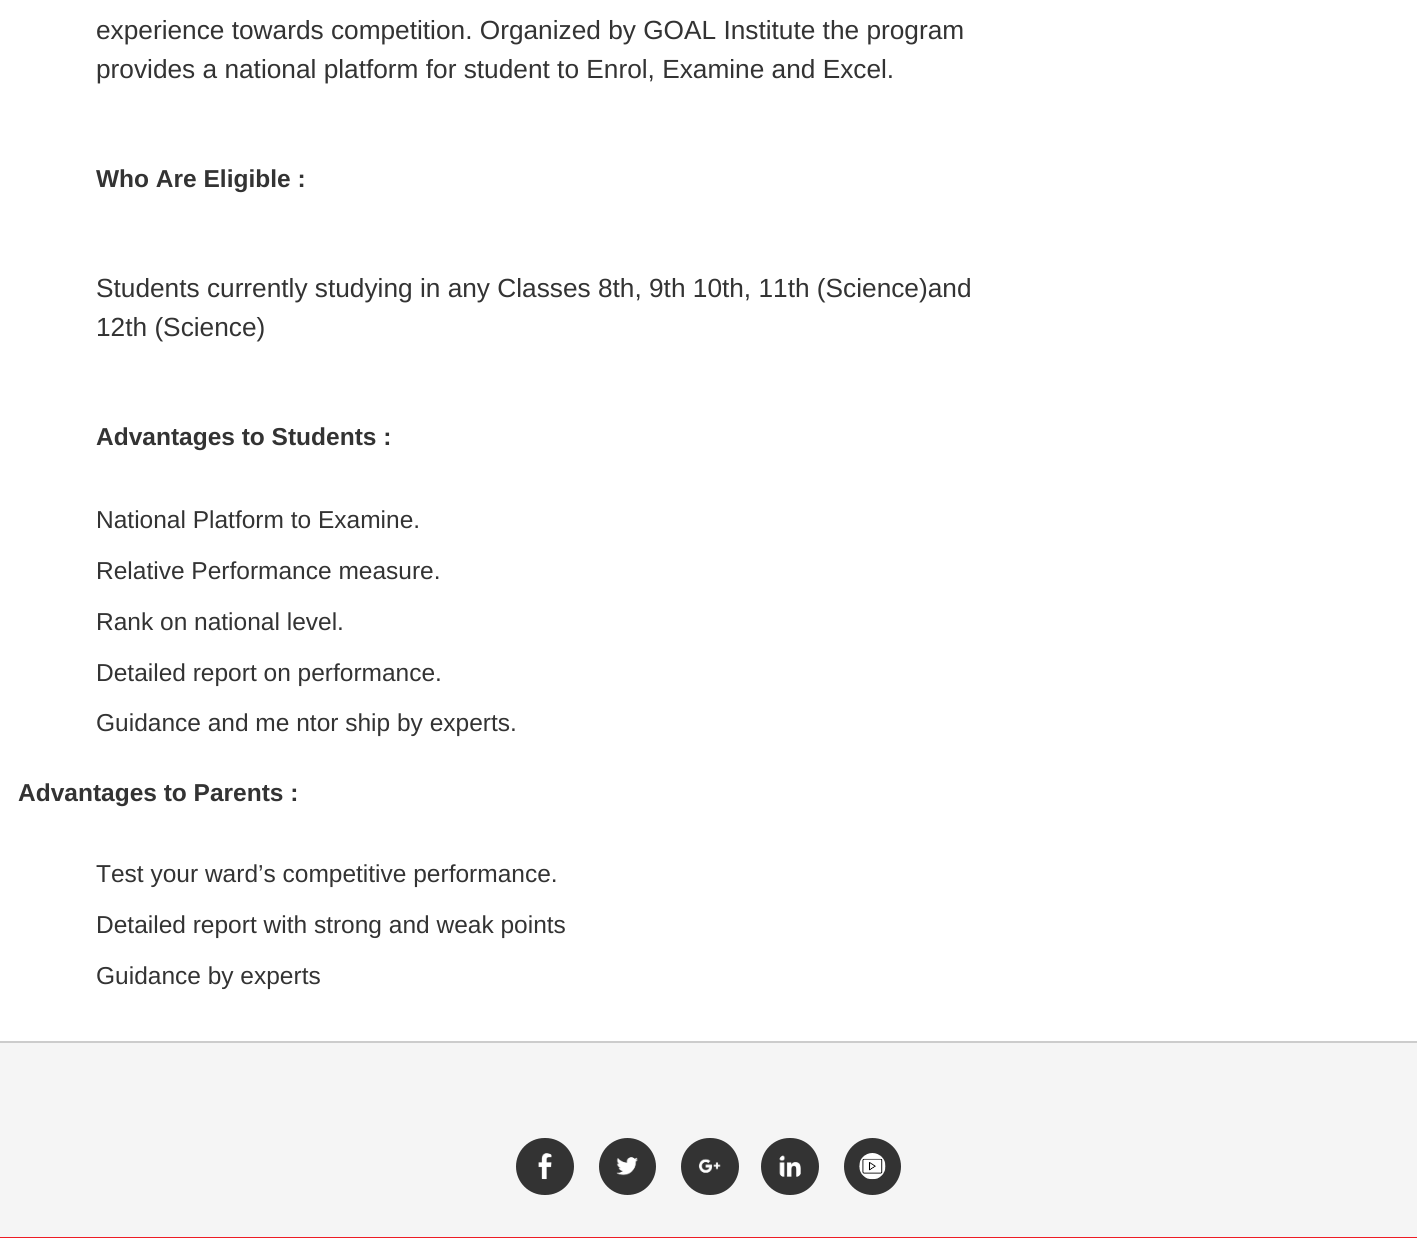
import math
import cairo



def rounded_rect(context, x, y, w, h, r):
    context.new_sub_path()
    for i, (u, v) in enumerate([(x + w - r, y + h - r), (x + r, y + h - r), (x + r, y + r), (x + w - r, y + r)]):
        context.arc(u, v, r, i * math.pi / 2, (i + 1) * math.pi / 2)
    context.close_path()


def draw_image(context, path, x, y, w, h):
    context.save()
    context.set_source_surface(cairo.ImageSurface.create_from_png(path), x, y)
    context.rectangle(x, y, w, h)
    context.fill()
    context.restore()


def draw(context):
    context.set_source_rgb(1, 1, 1)
    context.paint()
    context.set_source_rgb(245 / 255, 245 / 255, 245 / 255)
    context.rectangle(0, 1043, 1417, 194)
    context.fill()
    context.set_source_rgb(204 / 255, 204 / 255, 204 / 255)
    context.rectangle(0, 1041, 1417, 2)
    context.fill()
    context.set_source_rgb(51 / 255, 51 / 255, 51 / 255)
    rounded_rect(context, 516, 1138, 58, 57, 28.5)
    context.fill()
    context.arc(627.5, 1166.5, 28.5, 0, 2 * math.pi)
    context.fill()
    rounded_rect(context, 681, 1138, 58, 57, 28.5)
    context.fill()
    rounded_rect(context, 761, 1138, 58, 57, 28.5)
    context.fill()
    context.arc(872.5, 1166.5, 28.5, 0, 2 * math.pi)
    context.fill()
    draw_image(context, "images/1.png", 538, 1153, 14, 27)
    draw_image(context, "images/2.png", 616, 1157, 22, 19)
    draw_image(context, "images/3.png", 698, 1158, 23, 15)
    draw_image(context, "images/4.png", 779, 1155, 22, 22)
    draw_image(context, "images/5.png", 859, 1153, 27, 27)
    context.set_source_rgb(238 / 255, 28 / 255, 37 / 255)
    context.rectangle(0, 1237, 1417, 1)
    context.fill()
    context.select_font_face("Liberation Sans")
    context.set_font_size(26.25)
    context.set_source_rgb(51 / 255, 51 / 255, 51 / 255)
    context.move_to(96, 39)
    context.show_text("experience towards competition. Organized by GOAL Institute the program")
    context.move_to(96, 78)
    context.show_text("provides a national platform for student to Enrol, Examine and Excel.")
    context.select_font_face("Liberation Sans", cairo.FontSlant.NORMAL, cairo.FontWeight.BOLD)
    context.set_font_size(24.5)
    context.move_to(96, 187)
    context.show_text("Who Are Eligible :")
    context.select_font_face("Liberation Sans")
    context.set_font_size(26.25)
    context.move_to(96, 297)
    context.show_text("Students currently studying in any Classes 8th, 9th 10th, 11th (Science)and")
    context.move_to(96, 336)
    context.show_text("12th (Science)")
    context.select_font_face("Liberation Sans", cairo.FontSlant.NORMAL, cairo.FontWeight.BOLD)
    context.set_font_size(24.5)
    context.move_to(96, 445)
    context.show_text("Advantages to Students :")
    context.select_font_face("Liberation Sans")
    context.move_to(96, 528)
    context.show_text("National Platform to Examine.")
    context.move_to(96, 579)
    context.show_text("Relative Performance measure.")
    context.move_to(96, 630)
    context.show_text("Rank on national level.")
    context.move_to(96, 681)
    context.show_text("Detailed report on performance.")
    context.move_to(96, 731)
    context.show_text("Guidance and me ntor ship by experts.")
    context.select_font_face("Liberation Sans", cairo.FontSlant.NORMAL, cairo.FontWeight.BOLD)
    context.move_to(18, 801)
    context.show_text("Advantages to Parents :")
    context.select_font_face("Liberation Sans")
    context.move_to(96, 882)
    context.show_text("Test your ward’s competitive performance.")
    context.move_to(96, 933)
    context.show_text("Detailed report with strong and weak points")
    context.move_to(96, 984)
    context.show_text("Guidance by experts")


surface = cairo.ImageSurface(cairo.Format.RGB24, 1417, 1238)
context = cairo.Context(surface)
options = cairo.FontOptions()
options.set_hint_metrics(cairo.HintMetrics.OFF)
options.set_hint_style(cairo.HintStyle.NONE)
context.set_font_options(options)
context.set_miter_limit(4)
draw(context)
surface.write_to_png("out.png")
